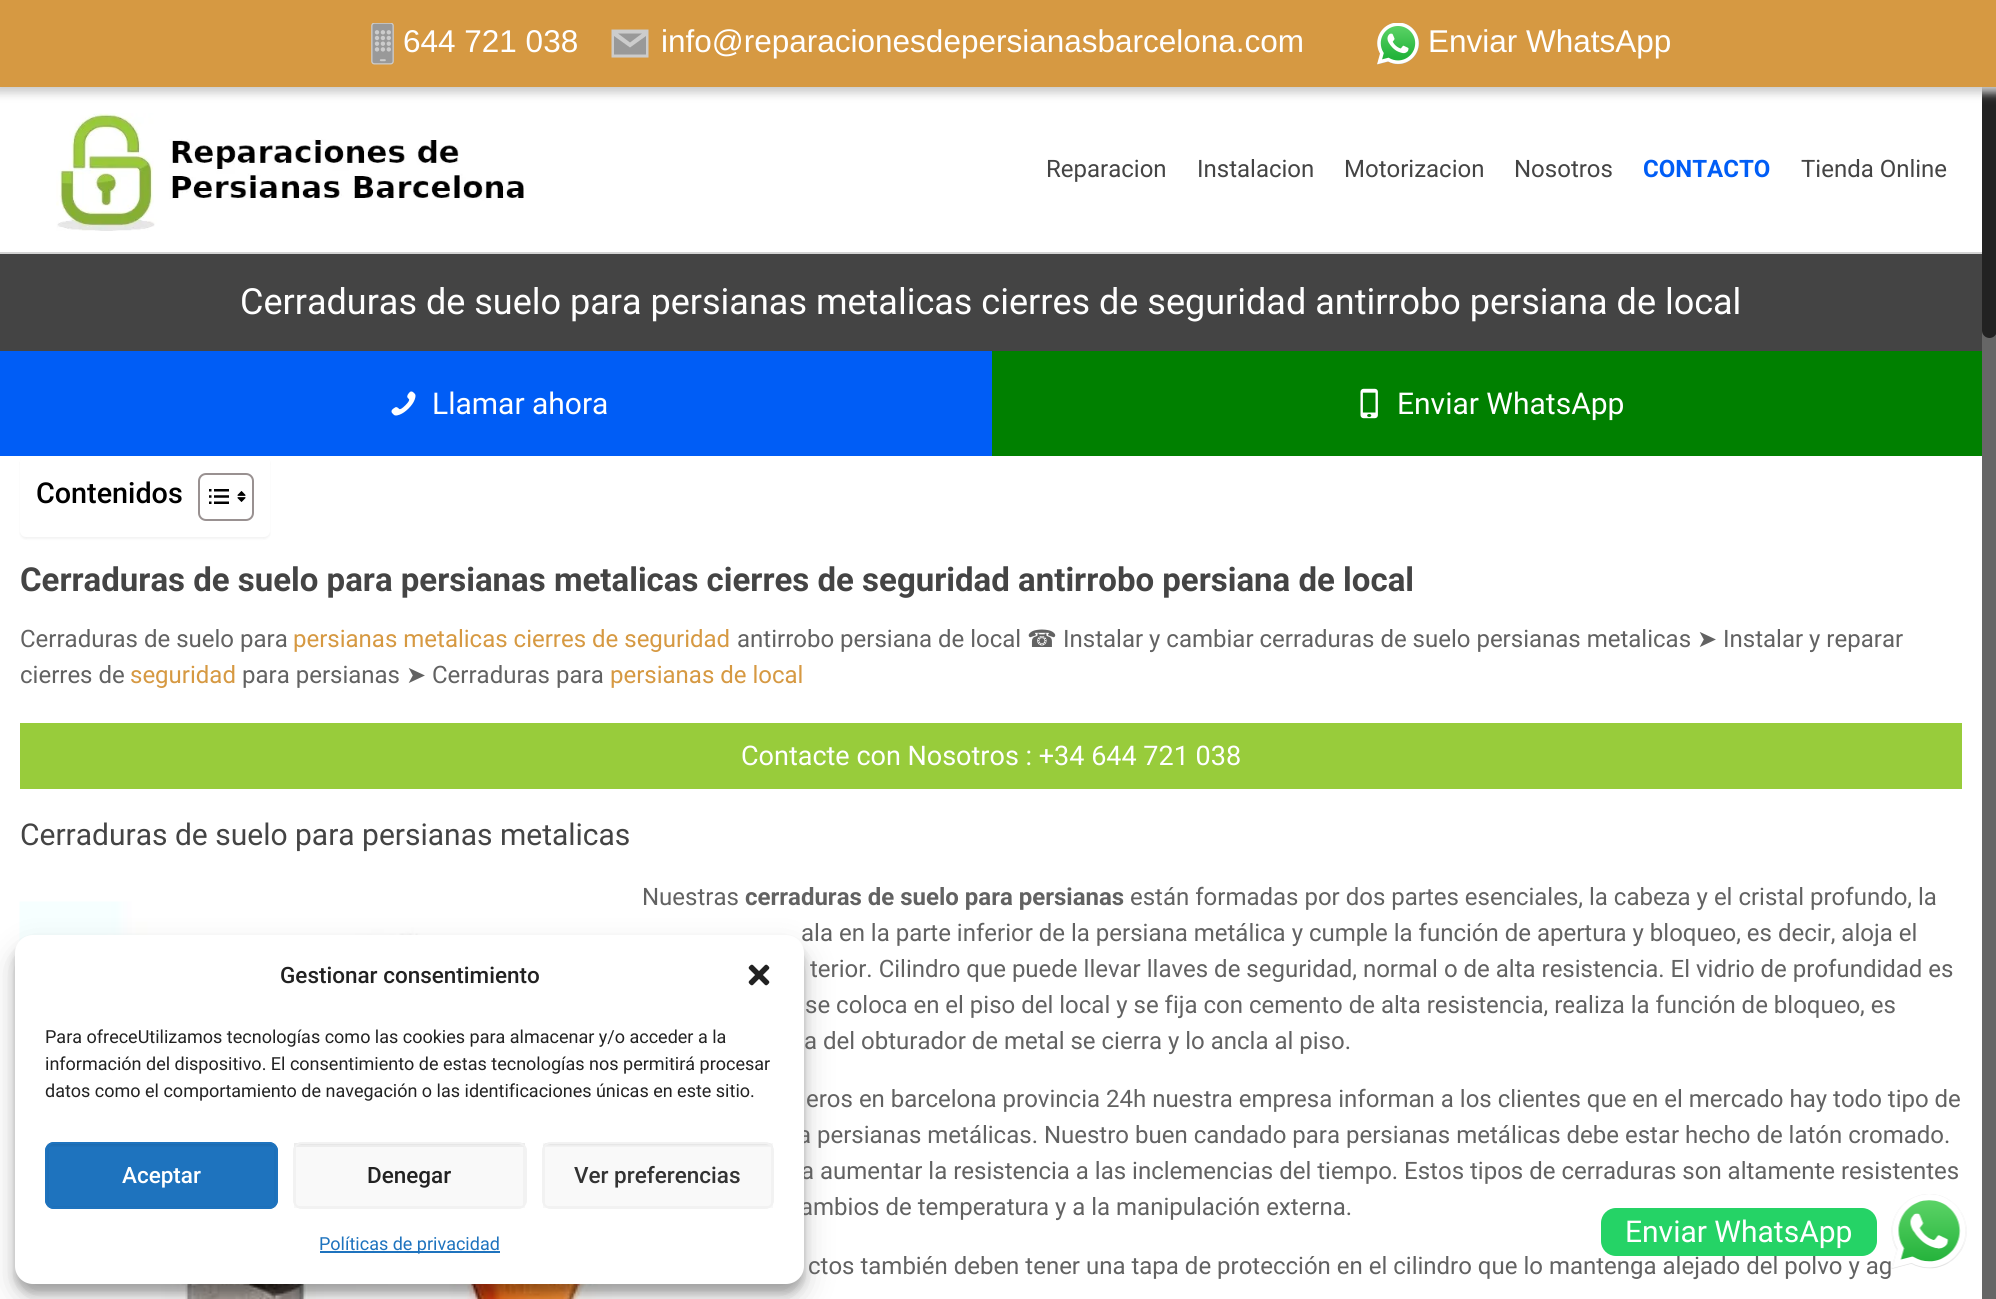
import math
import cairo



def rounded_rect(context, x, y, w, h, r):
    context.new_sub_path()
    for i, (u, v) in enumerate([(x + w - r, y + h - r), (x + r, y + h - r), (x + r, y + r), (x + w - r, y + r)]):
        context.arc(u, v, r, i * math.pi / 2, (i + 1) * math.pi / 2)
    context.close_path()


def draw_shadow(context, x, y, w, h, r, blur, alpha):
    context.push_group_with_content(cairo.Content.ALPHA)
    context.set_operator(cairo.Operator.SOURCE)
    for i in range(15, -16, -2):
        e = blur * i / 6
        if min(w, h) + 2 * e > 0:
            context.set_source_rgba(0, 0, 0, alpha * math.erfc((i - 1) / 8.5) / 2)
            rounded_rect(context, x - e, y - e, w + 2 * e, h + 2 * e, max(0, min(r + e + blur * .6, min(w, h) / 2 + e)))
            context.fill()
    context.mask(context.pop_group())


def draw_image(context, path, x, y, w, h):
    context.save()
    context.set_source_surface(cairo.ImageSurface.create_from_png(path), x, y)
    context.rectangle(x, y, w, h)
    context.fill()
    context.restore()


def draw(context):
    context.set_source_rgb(1, 1, 1)
    context.paint()
    context.set_source_rgb(102 / 255, 102 / 255, 102 / 255)
    context.rectangle(1982, 330, 14, 969)
    context.fill()
    context.set_source_rgb(34 / 255, 34 / 255, 34 / 255)
    rounded_rect(context, 1982, 0, 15, 338, 7.5)
    context.fill()
    context.set_source_rgb(204 / 255, 204 / 255, 204 / 255)
    draw_shadow(context, -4, -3, 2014, 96, 0, 4.5, 1)
    context.set_source_rgb(214 / 255, 153 / 255, 66 / 255)
    context.rectangle(0, 0, 1996, 87)
    context.fill()
    draw_image(context, "images/1.png", 371, 23, 23, 42)
    context.set_source_rgb(153 / 255, 153 / 255, 153 / 255)
    context.rectangle(614, 33, 32, 22)
    context.fill()
    context.set_source_rgb(204 / 255, 204 / 255, 204 / 255)
    context.new_path()
    context.move_to(611.5, 29.5)
    context.line_to(611.5, 57.5)
    context.line_to(648.5, 57.5)
    context.line_to(648.5, 29.5)
    context.close_path()
    context.move_to(642, 33.5)
    context.line_to(630, 42.5)
    context.line_to(618, 33.5)
    context.close_path()
    context.move_to(646, 54.5)
    context.line_to(614, 54.5)
    context.line_to(614, 36)
    context.line_to(630, 47.5)
    context.line_to(646, 36)
    context.close_path()
    context.fill()
    draw_image(context, "images/2.png", 1377, 23, 42, 42)
    context.set_source_rgb(211 / 255, 211 / 255, 211 / 255)
    context.rectangle(0, 252, 1982, 2)
    context.fill()
    draw_image(context, "images/3.png", 56, 113, 468, 118)
    context.set_source_rgb(68 / 255, 68 / 255, 68 / 255)
    context.rectangle(0, 254, 1982, 97)
    context.fill()
    context.set_source_rgb(0, 0, 0)
    draw_shadow(context, 20, 458, 250, 81, 6, 1, 0.05)
    context.set_source_rgb(0, 93 / 255, 246 / 255)
    context.rectangle(0, 351, 992, 105)
    context.fill()
    draw_image(context, "images/4.png", 391, 391, 25, 25)
    context.set_source_rgb(0, 128 / 255, 0)
    context.rectangle(992, 351, 990, 105)
    context.fill()
    draw_image(context, "images/5.png", 1360, 388, 18, 31)
    context.set_source_rgb(1, 1, 1)
    rounded_rect(context, 21, 457, 248, 79, 5)
    context.fill_preserve()
    context.stroke()
    rounded_rect(context, 199, 474, 54, 46, 7)
    context.set_source_rgb(153 / 255, 145 / 255, 145 / 255)
    context.stroke()
    draw_image(context, "images/6.png", 209, 489, 20, 15)
    draw_image(context, "images/7.png", 237, 491, 9, 11)
    context.set_source_rgb(152 / 255, 204 / 255, 59 / 255)
    context.rectangle(20, 723, 1942, 66)
    context.fill()
    draw_image(context, "images/8.png", 19, 901, 601, 398)
    context.set_source_rgb(0, 0, 0)
    draw_shadow(context, 15, 944, 789, 349, 18, 4.5, 0.23)
    draw_shadow(context, 15, 950, 789, 349, 18, 15, 0.19)
    context.set_source_rgb(37 / 255, 211 / 255, 102 / 255)
    rounded_rect(context, 1601, 1208, 276, 48, 15)
    context.fill()
    draw_image(context, "images/12.png", 1891, 1194, 76, 75)
    context.select_font_face("Liberation Sans")
    context.set_font_size(31.5)
    context.set_source_rgb(1, 1, 1)
    context.move_to(403, 52)
    context.show_text("644 721 038")
    context.move_to(661, 52)
    context.show_text("info@reparacionesdepersianasbarcelona.com")
    context.move_to(1428, 52)
    context.show_text("Enviar WhatsApp")
    context.select_font_face("Roboto")
    context.set_font_size(24)
    context.set_source_rgb(68 / 255, 68 / 255, 68 / 255)
    context.move_to(1046, 177)
    context.show_text("Reparacion")
    context.move_to(1197, 177)
    context.show_text("Instalacion")
    context.move_to(1344, 177)
    context.show_text("Motorizacion")
    context.move_to(1514, 177)
    context.show_text("Nosotros")
    context.select_font_face("Roboto", cairo.FontSlant.NORMAL, cairo.FontWeight.BOLD)
    context.set_source_rgb(0, 93 / 255, 246 / 255)
    context.move_to(1643, 177)
    context.show_text("CONTACTO")
    context.select_font_face("Roboto")
    context.set_source_rgb(68 / 255, 68 / 255, 68 / 255)
    context.move_to(1801, 177)
    context.show_text("Tienda Online")
    context.set_font_size(36)
    context.set_source_rgb(1, 1, 1)
    context.move_to(240, 314)
    context.show_text("Cerraduras de suelo para persianas metalicas cierres de seguridad antirrobo persiana de local")
    context.set_font_size(30)
    context.move_to(432, 414)
    context.show_text("Llamar ahora")
    context.move_to(1397, 414)
    context.show_text("Enviar WhatsApp")
    context.select_font_face("Roboto Medium")
    context.set_font_size(28.75)
    context.set_source_rgb(0, 0, 0)
    context.move_to(36, 503)
    context.show_text("Contenidos")
    context.select_font_face("Roboto", cairo.FontSlant.NORMAL, cairo.FontWeight.BOLD)
    context.set_font_size(33)
    context.set_source_rgb(68 / 255, 68 / 255, 68 / 255)
    context.move_to(20, 591)
    context.show_text("Cerraduras de suelo para persianas metalicas cierres de seguridad antirrobo persiana de local")
    context.select_font_face("Roboto")
    context.set_font_size(24)
    context.set_source_rgb(98 / 255, 98 / 255, 98 / 255)
    context.move_to(20, 647)
    context.show_text("Cerraduras de suelo para")
    context.set_source_rgb(214 / 255, 153 / 255, 66 / 255)
    context.move_to(293, 647)
    context.show_text("persianas metalicas cierres de seguridad")
    context.set_source_rgb(98 / 255, 98 / 255, 98 / 255)
    context.move_to(737, 647)
    context.show_text("antirrobo persiana de local")
    context.select_font_face("DejaVu Sans")
    context.move_to(1027, 647)
    context.show_text("☎")
    context.select_font_face("Roboto")
    context.move_to(1063, 647)
    context.show_text("Instalar y cambiar cerraduras de suelo persianas metalicas")
    context.select_font_face("DejaVu Sans")
    context.move_to(1697, 647)
    context.show_text("➤")
    context.select_font_face("Roboto")
    context.move_to(1723, 647)
    context.show_text("Instalar y reparar")
    context.move_to(20, 683)
    context.show_text("cierres de")
    context.set_source_rgb(214 / 255, 153 / 255, 66 / 255)
    context.move_to(130, 683)
    context.show_text("seguridad")
    context.set_source_rgb(98 / 255, 98 / 255, 98 / 255)
    context.move_to(242, 683)
    context.show_text("para persianas")
    context.select_font_face("DejaVu Sans")
    context.move_to(406, 683)
    context.show_text("➤")
    context.select_font_face("Roboto")
    context.move_to(432, 683)
    context.show_text("Cerraduras para")
    context.set_source_rgb(214 / 255, 153 / 255, 66 / 255)
    context.move_to(610, 683)
    context.show_text("persianas de local")
    context.set_font_size(27)
    context.set_source_rgb(1, 1, 1)
    context.move_to(741, 765)
    context.show_text("Contacte con Nosotros : +34 644 721 038")
    context.set_font_size(30)
    context.set_source_rgb(68 / 255, 68 / 255, 68 / 255)
    context.move_to(20, 845)
    context.show_text("Cerraduras de suelo para persianas metalicas")
    context.set_font_size(24)
    context.set_source_rgb(98 / 255, 98 / 255, 98 / 255)
    context.move_to(642, 905)
    context.show_text("Nuestras")
    context.select_font_face("Roboto", cairo.FontSlant.NORMAL, cairo.FontWeight.BOLD)
    context.move_to(745, 905)
    context.show_text("cerraduras de suelo para persianas")
    context.select_font_face("Roboto")
    context.move_to(1130, 905)
    context.show_text("están formadas por dos partes esenciales, la cabeza y el cristal profundo, la")
    context.move_to(801, 941)
    context.show_text("ala en la parte inferior de la persiana metálica y cumple la función de apertura y bloqueo, es decir, aloja el")
    context.move_to(810, 977)
    context.show_text("terior. Cilindro que puede llevar llaves de seguridad, normal o de alta resistencia. El vidrio de profundidad es")
    context.move_to(805, 1013)
    context.show_text("se coloca en el piso del local y se fija con cemento de alta resistencia, realiza la función de bloqueo, es")
    context.move_to(804, 1049)
    context.show_text("a del obturador de metal se cierra y lo ancla al piso.")
    context.move_to(806, 1107)
    context.show_text("eros en barcelona provincia 24h nuestra empresa informan a los clientes que en el mercado hay todo tipo de")
    context.move_to(798, 1143)
    context.show_text("a persianas metálicas. Nuestro buen candado para persianas metálicas debe estar hecho de latón cromado.")
    context.move_to(801, 1179)
    context.show_text("a aumentar la resistencia a las inclemencias del tiempo. Estos tipos de cerraduras son altamente resistentes")
    context.move_to(800, 1215)
    context.show_text("ambios de temperatura y a la manipulación externa.")
    context.move_to(808, 1274)
    context.show_text("ctos también deben tener una tapa de protección en el cilindro que lo mantenga alejado del polvo y ag")
    context.set_source_rgb(1, 1, 1)
    rounded_rect(context, 15, 935, 789, 349, 18)
    context.fill()
    context.select_font_face("Roboto Medium")
    context.set_font_size(22.5)
    context.set_source_rgb(34 / 255, 34 / 255, 34 / 255)
    context.move_to(280, 983)
    context.show_text("Gestionar consentimiento")
    draw_image(context, "images/9.png", 748, 964, 22, 22)
    context.select_font_face("Roboto")
    context.set_font_size(18)
    context.move_to(45, 1043)
    context.show_text("Para ofreceUtilizamos tecnologías como las cookies para almacenar y/o acceder a la")
    context.move_to(45, 1070)
    context.show_text("información del dispositivo. El consentimiento de estas tecnologías nos permitirá procesar")
    context.move_to(45, 1097)
    context.show_text("datos como el comportamiento de navegación o las identificaciones únicas en este sitio.")
    context.set_source_rgb(30 / 255, 115 / 255, 190 / 255)
    rounded_rect(context, 45, 1142, 233, 67, 9)
    context.fill()
    draw_image(context, "images/10.png", 46, 1143, 230, 4)
    context.rectangle(48, 1144, 227, 63)
    context.set_source_rgba(0, 0, 0, 0.03)
    context.stroke()
    rounded_rect(context, 46, 1143, 231, 65, 8)
    context.set_source_rgb(30 / 255, 115 / 255, 190 / 255)
    context.stroke()
    context.select_font_face("Roboto Medium")
    context.set_font_size(22.5)
    context.set_source_rgb(1, 1, 1)
    context.move_to(122, 1183)
    context.show_text("Aceptar")
    context.set_source_rgb(249 / 255, 249 / 255, 249 / 255)
    rounded_rect(context, 293, 1142, 234, 67, 9)
    context.fill()
    context.set_source_rgba(0, 0, 0, 0.05)
    context.rectangle(294, 1143, 231, 4)
    context.fill()
    context.rectangle(295, 1144, 229, 63)
    context.set_source_rgba(0, 0, 0, 0.03)
    context.stroke()
    rounded_rect(context, 294, 1143, 232, 65, 8)
    context.set_source_rgb(242 / 255, 242 / 255, 242 / 255)
    context.stroke()
    context.set_source_rgb(34 / 255, 34 / 255, 34 / 255)
    context.move_to(367, 1183)
    context.show_text("Denegar")
    context.set_source_rgb(249 / 255, 249 / 255, 249 / 255)
    rounded_rect(context, 542, 1142, 232, 67, 9)
    context.fill()
    draw_image(context, "images/11.png", 543, 1143, 230, 4)
    context.rectangle(544, 1144, 228, 63)
    context.set_source_rgba(0, 0, 0, 0.03)
    context.stroke()
    rounded_rect(context, 543, 1143, 230, 65, 8)
    context.set_source_rgb(242 / 255, 242 / 255, 242 / 255)
    context.stroke()
    context.set_source_rgb(51 / 255, 51 / 255, 51 / 255)
    context.move_to(574, 1183)
    context.show_text("Ver preferencias")
    context.set_source_rgb(30 / 255, 115 / 255, 190 / 255)
    context.rectangle(320, 1251, 180, 2)
    context.fill()
    context.select_font_face("Roboto")
    context.set_font_size(18)
    context.move_to(319, 1250)
    context.show_text("Políticas de privacidad")
    context.set_font_size(30)
    context.set_source_rgb(1, 1, 1)
    context.move_to(1625, 1242)
    context.show_text("Enviar WhatsApp")


surface = cairo.ImageSurface(cairo.Format.RGB24, 1996, 1299)
context = cairo.Context(surface)
options = cairo.FontOptions()
options.set_hint_metrics(cairo.HintMetrics.OFF)
options.set_hint_style(cairo.HintStyle.NONE)
context.set_font_options(options)
context.set_miter_limit(4)
draw(context)
surface.write_to_png("out.png")
